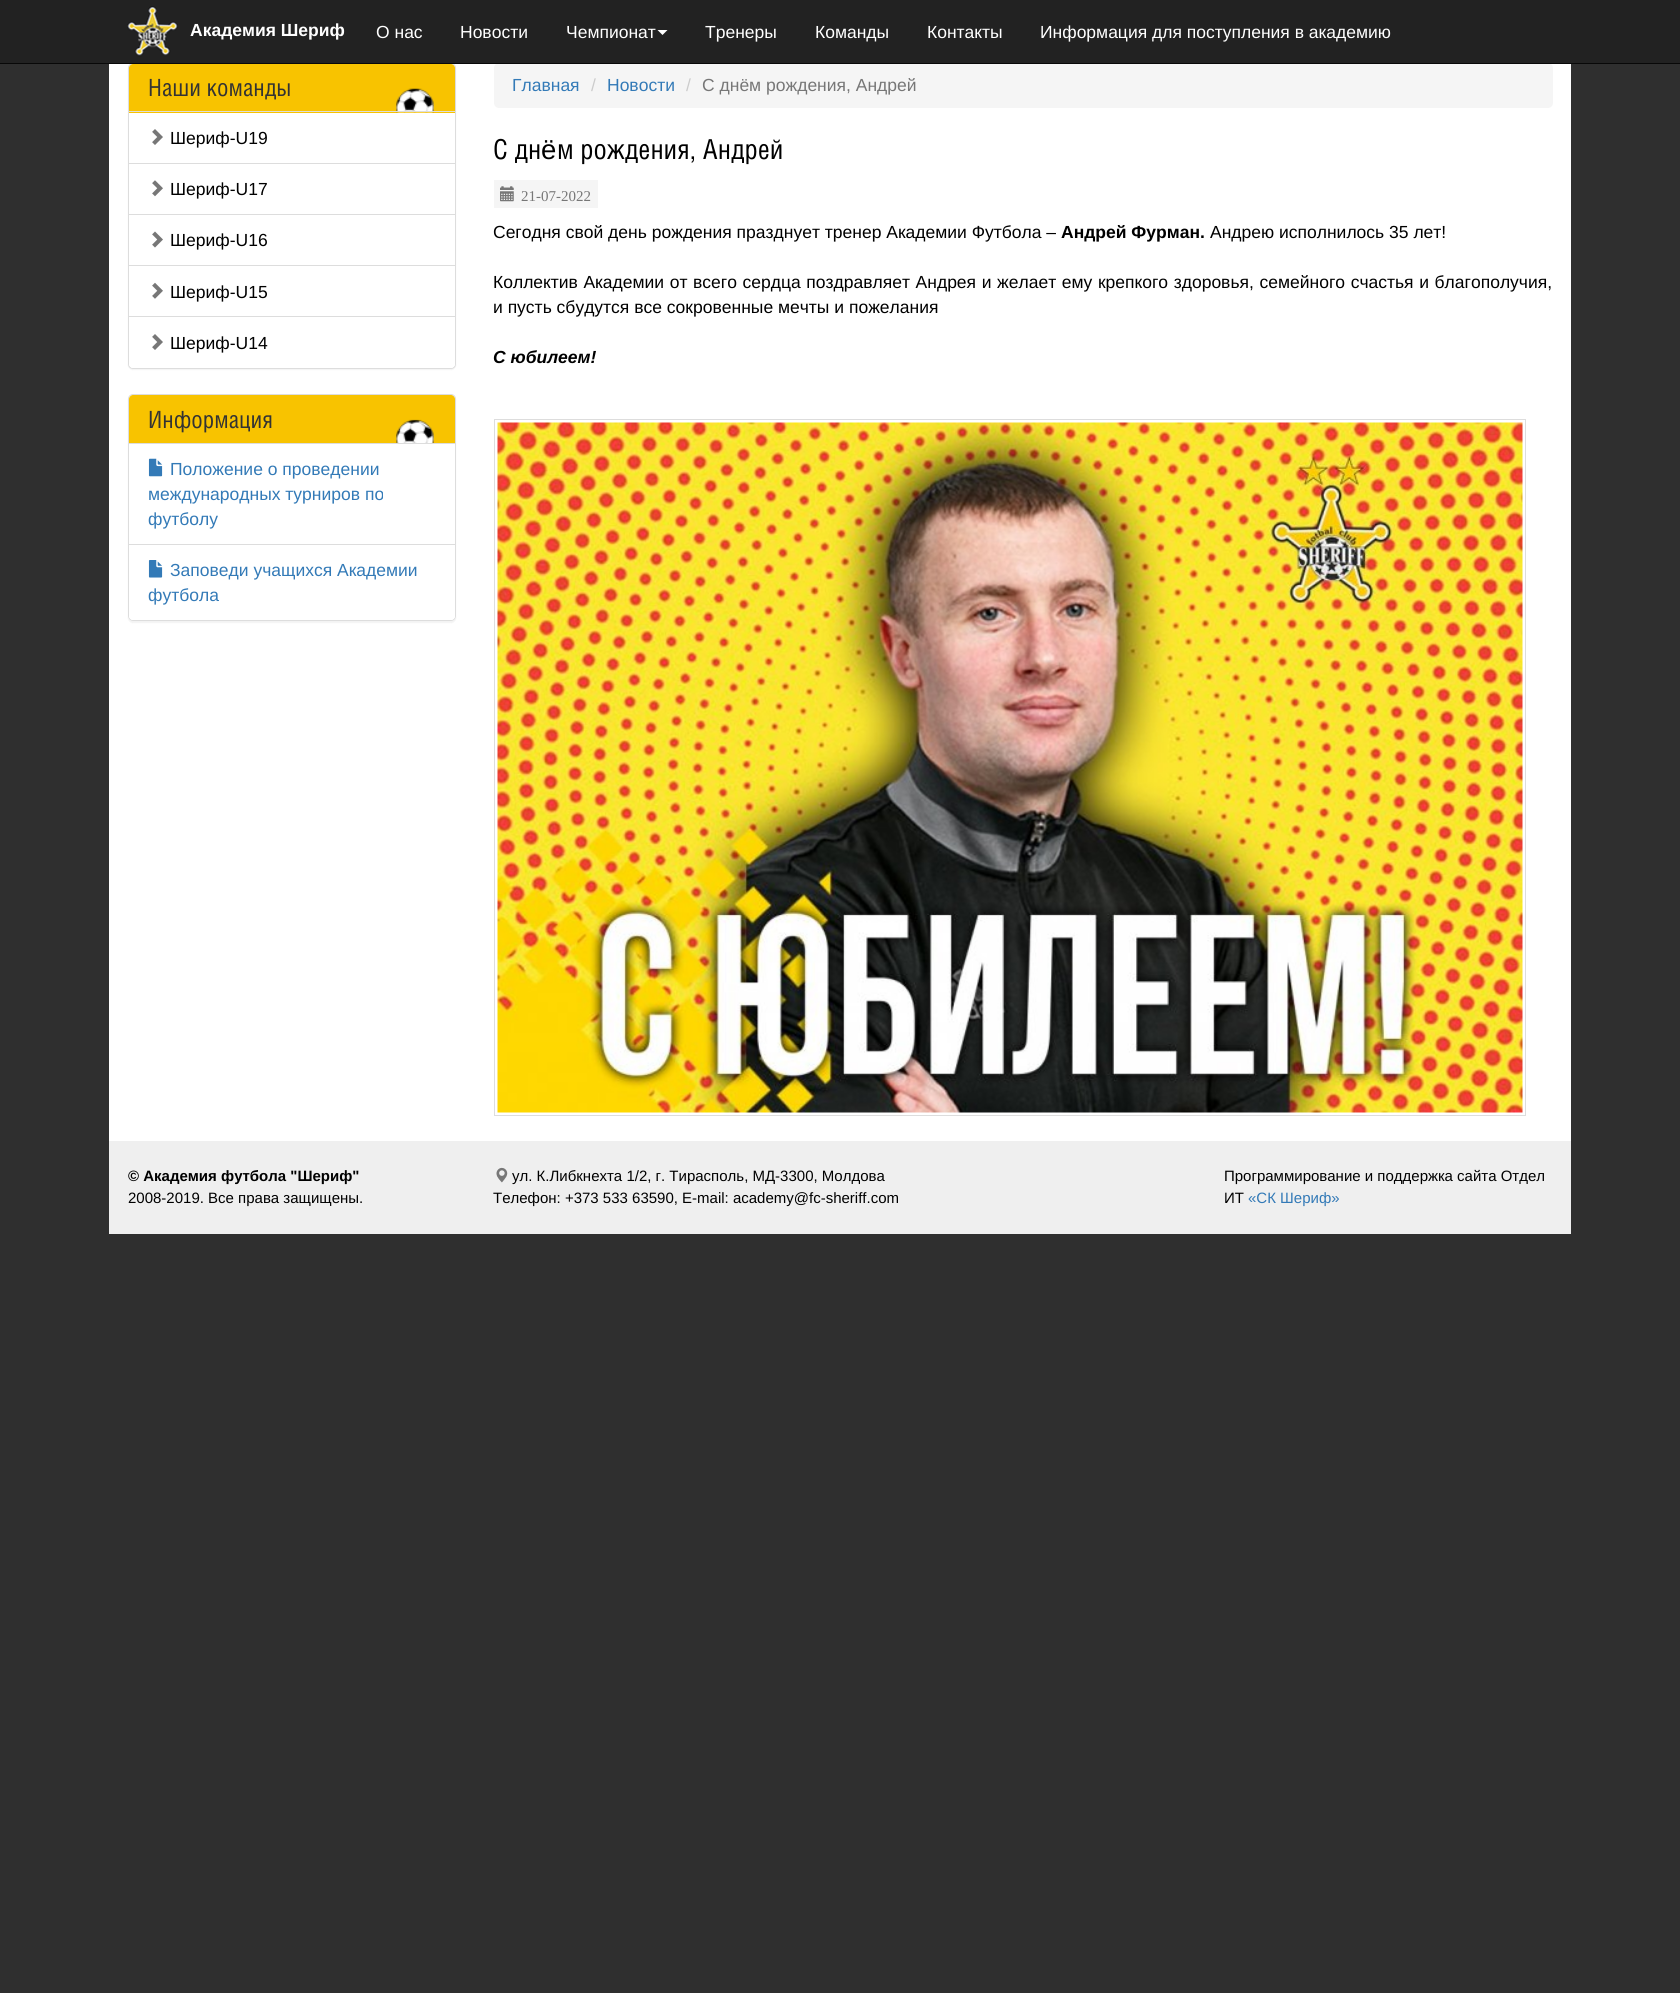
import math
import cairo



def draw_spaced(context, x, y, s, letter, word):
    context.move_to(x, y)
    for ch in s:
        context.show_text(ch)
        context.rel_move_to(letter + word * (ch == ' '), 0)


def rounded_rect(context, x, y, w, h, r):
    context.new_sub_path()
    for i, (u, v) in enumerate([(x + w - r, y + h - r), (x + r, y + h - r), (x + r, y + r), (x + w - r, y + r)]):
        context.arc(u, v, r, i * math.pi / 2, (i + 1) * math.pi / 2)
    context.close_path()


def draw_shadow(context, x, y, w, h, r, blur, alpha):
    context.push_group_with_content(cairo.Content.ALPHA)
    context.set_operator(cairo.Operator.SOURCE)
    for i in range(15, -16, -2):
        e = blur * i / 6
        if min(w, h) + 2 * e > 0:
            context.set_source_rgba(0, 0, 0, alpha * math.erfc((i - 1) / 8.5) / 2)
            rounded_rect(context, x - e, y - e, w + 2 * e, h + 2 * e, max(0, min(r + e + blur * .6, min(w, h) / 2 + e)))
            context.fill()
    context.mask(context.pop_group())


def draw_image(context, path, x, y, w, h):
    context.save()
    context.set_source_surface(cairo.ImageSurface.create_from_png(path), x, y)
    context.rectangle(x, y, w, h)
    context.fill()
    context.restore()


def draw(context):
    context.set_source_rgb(47 / 255, 47 / 255, 47 / 255)
    context.paint()
    context.set_source_rgb(1, 1, 1)
    context.rectangle(109, 64, 1462, 1077)
    context.fill()
    context.set_source_rgb(0, 0, 0)
    draw_shadow(context, 128, 64, 328, 306, 5, 0.5, 0.05)
    context.set_source_rgb(34 / 255, 34 / 255, 34 / 255)
    context.rectangle(0, 0, 1680, 63)
    context.fill()
    context.set_source_rgb(1, 1, 1)
    rounded_rect(context, 128.5, 63.5, 327, 305, 4.5)
    context.fill_preserve()
    context.set_source_rgb(221 / 255, 221 / 255, 221 / 255)
    context.set_line_width(1)
    context.stroke()
    context.set_source_rgb(245 / 255, 245 / 255, 245 / 255)
    rounded_rect(context, 494, 63, 1059, 45, 5)
    context.fill()
    context.set_source_rgb(8 / 255, 8 / 255, 8 / 255)
    context.rectangle(0, 63, 1680, 1)
    context.fill()
    draw_image(context, "images/1.png", 127, 6, 51, 51)
    context.set_source_rgb(1, 1, 1)
    context.new_path()
    context.move_to(657.5, 30)
    context.line_to(667.5, 30)
    context.line_to(662.5, 35)
    context.close_path()
    context.fill()
    context.set_source_rgb(248 / 255, 195 / 255, 0)
    context.new_path()
    context.move_to(133, 64)
    context.line_to(451, 64)
    context.curve_to(453, 64, 455, 66, 455, 68)
    context.line_to(455, 113)
    context.line_to(129, 113)
    context.line_to(129, 68)
    context.curve_to(129, 66, 131, 64, 133, 64)
    context.close_path()
    context.fill()
    draw_image(context, "images/2.png", 396, 88, 38, 25)
    context.set_source_rgb(221 / 255, 221 / 255, 221 / 255)
    context.rectangle(129, 111, 326, 1)
    context.fill()
    context.rectangle(129, 163, 326, 1)
    context.fill()
    draw_image(context, "images/3.png", 152, 129, 11, 16)
    context.rectangle(129, 214, 326, 1)
    context.fill()
    draw_image(context, "images/4.png", 152, 180, 11, 17)
    context.rectangle(129, 265, 326, 1)
    context.fill()
    draw_image(context, "images/5.png", 152, 231, 11, 17)
    draw_image(context, "images/6.png", 152, 282, 11, 17)
    context.set_source_rgb(1, 1, 1)
    context.new_path()
    context.move_to(129, 316)
    context.line_to(455, 316)
    context.line_to(455, 364)
    context.curve_to(455, 366, 453, 368, 451, 368)
    context.line_to(133, 368)
    context.curve_to(131, 368, 129, 366, 129, 364)
    context.close_path()
    context.fill()
    context.set_source_rgb(221 / 255, 221 / 255, 221 / 255)
    context.rectangle(129, 316, 326, 1)
    context.fill()
    draw_image(context, "images/3.png", 152, 334, 11, 16)
    context.save()
    context.set_fill_rule(cairo.FillRule.EVEN_ODD)
    context.new_path()
    context.move_to(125, 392)
    context.line_to(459, 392)
    context.line_to(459, 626)
    context.line_to(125, 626)
    context.close_path()
    context.move_to(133, 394)
    context.line_to(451, 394)
    context.curve_to(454, 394, 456, 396, 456, 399)
    context.line_to(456, 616)
    context.curve_to(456, 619, 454, 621, 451, 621)
    context.line_to(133, 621)
    context.curve_to(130, 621, 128, 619, 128, 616)
    context.line_to(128, 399)
    context.curve_to(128, 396, 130, 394, 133, 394)
    context.close_path()
    context.clip()
    context.set_source_rgb(0, 0, 0)
    draw_shadow(context, 128, 395, 328, 228, 5, 0.5, 0.05)
    context.restore()
    rounded_rect(context, 128.5, 394.5, 327, 226, 4.5)
    context.stroke()
    context.set_source_rgb(248 / 255, 195 / 255, 0)
    context.new_path()
    context.move_to(133, 395)
    context.line_to(451, 395)
    context.curve_to(453, 395, 455, 397, 455, 399)
    context.line_to(455, 444)
    context.line_to(129, 444)
    context.line_to(129, 399)
    context.curve_to(129, 397, 131, 395, 133, 395)
    context.close_path()
    context.fill()
    draw_image(context, "images/7.png", 396, 419, 38, 24)
    context.set_source_rgb(221 / 255, 221 / 255, 221 / 255)
    context.rectangle(129, 443, 326, 1)
    context.fill()
    draw_image(context, "images/8.png", 148, 458, 15, 19)
    context.set_source_rgb(1, 1, 1)
    context.new_path()
    context.move_to(129, 544)
    context.line_to(455, 544)
    context.line_to(455, 616)
    context.curve_to(455, 618, 453, 620, 451, 620)
    context.line_to(133, 620)
    context.curve_to(131, 620, 129, 618, 129, 616)
    context.close_path()
    context.fill()
    context.set_source_rgb(221 / 255, 221 / 255, 221 / 255)
    context.rectangle(129, 544, 326, 1)
    context.fill()
    draw_image(context, "images/9.png", 148, 560, 15, 18)
    context.set_source_rgb(245 / 255, 245 / 255, 245 / 255)
    context.rectangle(494, 180, 104, 28)
    context.fill()
    draw_image(context, "images/10.png", 500, 186, 14, 16)
    context.rectangle(494.5, 419.5, 1031, 696)
    context.set_source_rgb(221 / 255, 221 / 255, 221 / 255)
    context.stroke()
    draw_image(context, "images/11.png", 497, 422, 1026, 691)
    context.set_source_rgb(239 / 255, 239 / 255, 239 / 255)
    context.rectangle(109, 1141, 1462, 93)
    context.fill()
    draw_image(context, "images/12.png", 496, 1167, 12, 16)
    context.select_font_face("Liberation Sans", cairo.FontSlant.NORMAL, cairo.FontWeight.BOLD)
    context.set_font_size(17.5)
    context.set_source_rgb(1, 1, 1)
    context.move_to(190, 36)
    context.show_text("Академия Шериф")
    context.select_font_face("Liberation Sans")
    context.move_to(376, 38)
    context.show_text("О нас")
    context.move_to(460, 38)
    context.show_text("Новости")
    context.move_to(566, 38)
    context.show_text("Чемпионат")
    context.move_to(705, 38)
    context.show_text("Тренеры")
    context.move_to(815, 38)
    context.show_text("Команды")
    context.move_to(927, 38)
    context.show_text("Контакты")
    context.move_to(1040, 38)
    context.show_text("Информация для поступления в академию")
    context.select_font_face("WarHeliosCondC")
    context.set_font_size(23.75)
    context.set_source_rgb(51 / 255, 51 / 255, 51 / 255)
    context.move_to(148, 96)
    context.show_text("Наши команды")
    context.select_font_face("Liberation Sans")
    context.set_font_size(17.5)
    context.set_source_rgb(0, 0, 0)
    context.move_to(170, 144)
    context.show_text("Шериф-U19")
    context.move_to(170, 195)
    context.show_text("Шериф-U17")
    context.move_to(170, 246)
    context.show_text("Шериф-U16")
    context.move_to(170, 298)
    context.show_text("Шериф-U15")
    context.move_to(170, 349)
    context.show_text("Шериф-U14")
    context.select_font_face("WarHeliosCondC")
    context.set_font_size(23.75)
    context.set_source_rgb(51 / 255, 51 / 255, 51 / 255)
    context.move_to(148, 428)
    context.show_text("Информация")
    context.select_font_face("Liberation Sans")
    context.set_font_size(17.5)
    context.set_source_rgb(51 / 255, 122 / 255, 183 / 255)
    context.move_to(170, 475)
    context.show_text("Положение о проведении")
    context.move_to(148, 500)
    context.show_text("международных турниров по")
    context.move_to(148, 525)
    context.show_text("футболу")
    context.move_to(170, 576)
    context.show_text("Заповеди учащихся Академии")
    context.move_to(148, 601)
    context.show_text("футбола")
    context.move_to(512, 91)
    context.show_text("Главная")
    context.set_source_rgb(204 / 255, 204 / 255, 204 / 255)
    context.move_to(591, 91)
    context.show_text("/")
    context.set_source_rgb(51 / 255, 122 / 255, 183 / 255)
    context.move_to(607, 91)
    context.show_text("Новости")
    context.set_source_rgb(204 / 255, 204 / 255, 204 / 255)
    context.move_to(686, 91)
    context.show_text("/")
    context.set_source_rgb(119 / 255, 119 / 255, 119 / 255)
    context.move_to(702, 91)
    context.show_text("С днём рождения, Андрей")
    context.select_font_face("WarHeliosCondC")
    context.set_font_size(27.5)
    context.set_source_rgb(0, 0, 0)
    context.move_to(493, 159)
    context.show_text("С дн")
    context.select_font_face("Liberation Sans")
    context.move_to(541, 159)
    context.show_text("ё")
    context.select_font_face("WarHeliosCondC")
    context.move_to(557, 159)
    context.show_text("м рождения, Андрей")
    context.select_font_face("Liberation Serif")
    context.set_font_size(15)
    context.set_source_rgb(119 / 255, 119 / 255, 119 / 255)
    context.move_to(521, 201)
    context.show_text("21-07-2022")
    context.select_font_face("Liberation Sans")
    context.set_font_size(17.5)
    context.set_source_rgb(0, 0, 0)
    context.move_to(493, 238)
    context.show_text("Сегодня свой день рождения празднует тренер Академии Футбола –")
    context.select_font_face("Liberation Sans", cairo.FontSlant.NORMAL, cairo.FontWeight.BOLD)
    context.move_to(1061, 238)
    context.show_text("Андрей Фурман.")
    context.select_font_face("Liberation Sans")
    context.move_to(1210, 238)
    context.show_text("Андрею исполнилось 35 лет!")
    draw_spaced(context, 493, 288, "Коллектив Академии от всего сердца поздравляет Андрея и желает ему крепкого здоровья, семейного счастья и благополучия,", 0, 0.75)
    context.move_to(493, 313)
    context.show_text("и пусть сбудутся все сокровенные мечты и пожелания")
    context.select_font_face("Liberation Sans", cairo.FontSlant.ITALIC, cairo.FontWeight.BOLD)
    context.move_to(493, 363)
    context.show_text("С юбилеем!")
    context.select_font_face("Liberation Sans", cairo.FontSlant.NORMAL, cairo.FontWeight.BOLD)
    context.set_font_size(15)
    context.move_to(128, 1181)
    context.show_text("© Академия футбола \"Шериф\"")
    context.select_font_face("Liberation Sans")
    context.move_to(128, 1203)
    context.show_text("2008-2019. Все права защищены.")
    context.move_to(512, 1181)
    context.show_text("ул. К.Либкнехта 1/2, г. Тирасполь, МД-3300, Молдова")
    context.move_to(493, 1203)
    context.show_text("Телефон: +373 533 63590, E-mail: academy@fc-sheriff.com")
    context.move_to(1224, 1181)
    context.show_text("Программирование и поддержка сайта Отдел")
    context.move_to(1224, 1203)
    context.show_text("ИТ")
    context.set_source_rgb(51 / 255, 122 / 255, 183 / 255)
    context.move_to(1248, 1203)
    context.show_text("«СК Шериф»")


surface = cairo.ImageSurface(cairo.Format.RGB24, 1680, 1993)
context = cairo.Context(surface)
options = cairo.FontOptions()
options.set_hint_metrics(cairo.HintMetrics.OFF)
options.set_hint_style(cairo.HintStyle.NONE)
context.set_font_options(options)
context.set_miter_limit(4)
draw(context)
surface.write_to_png("out.png")
